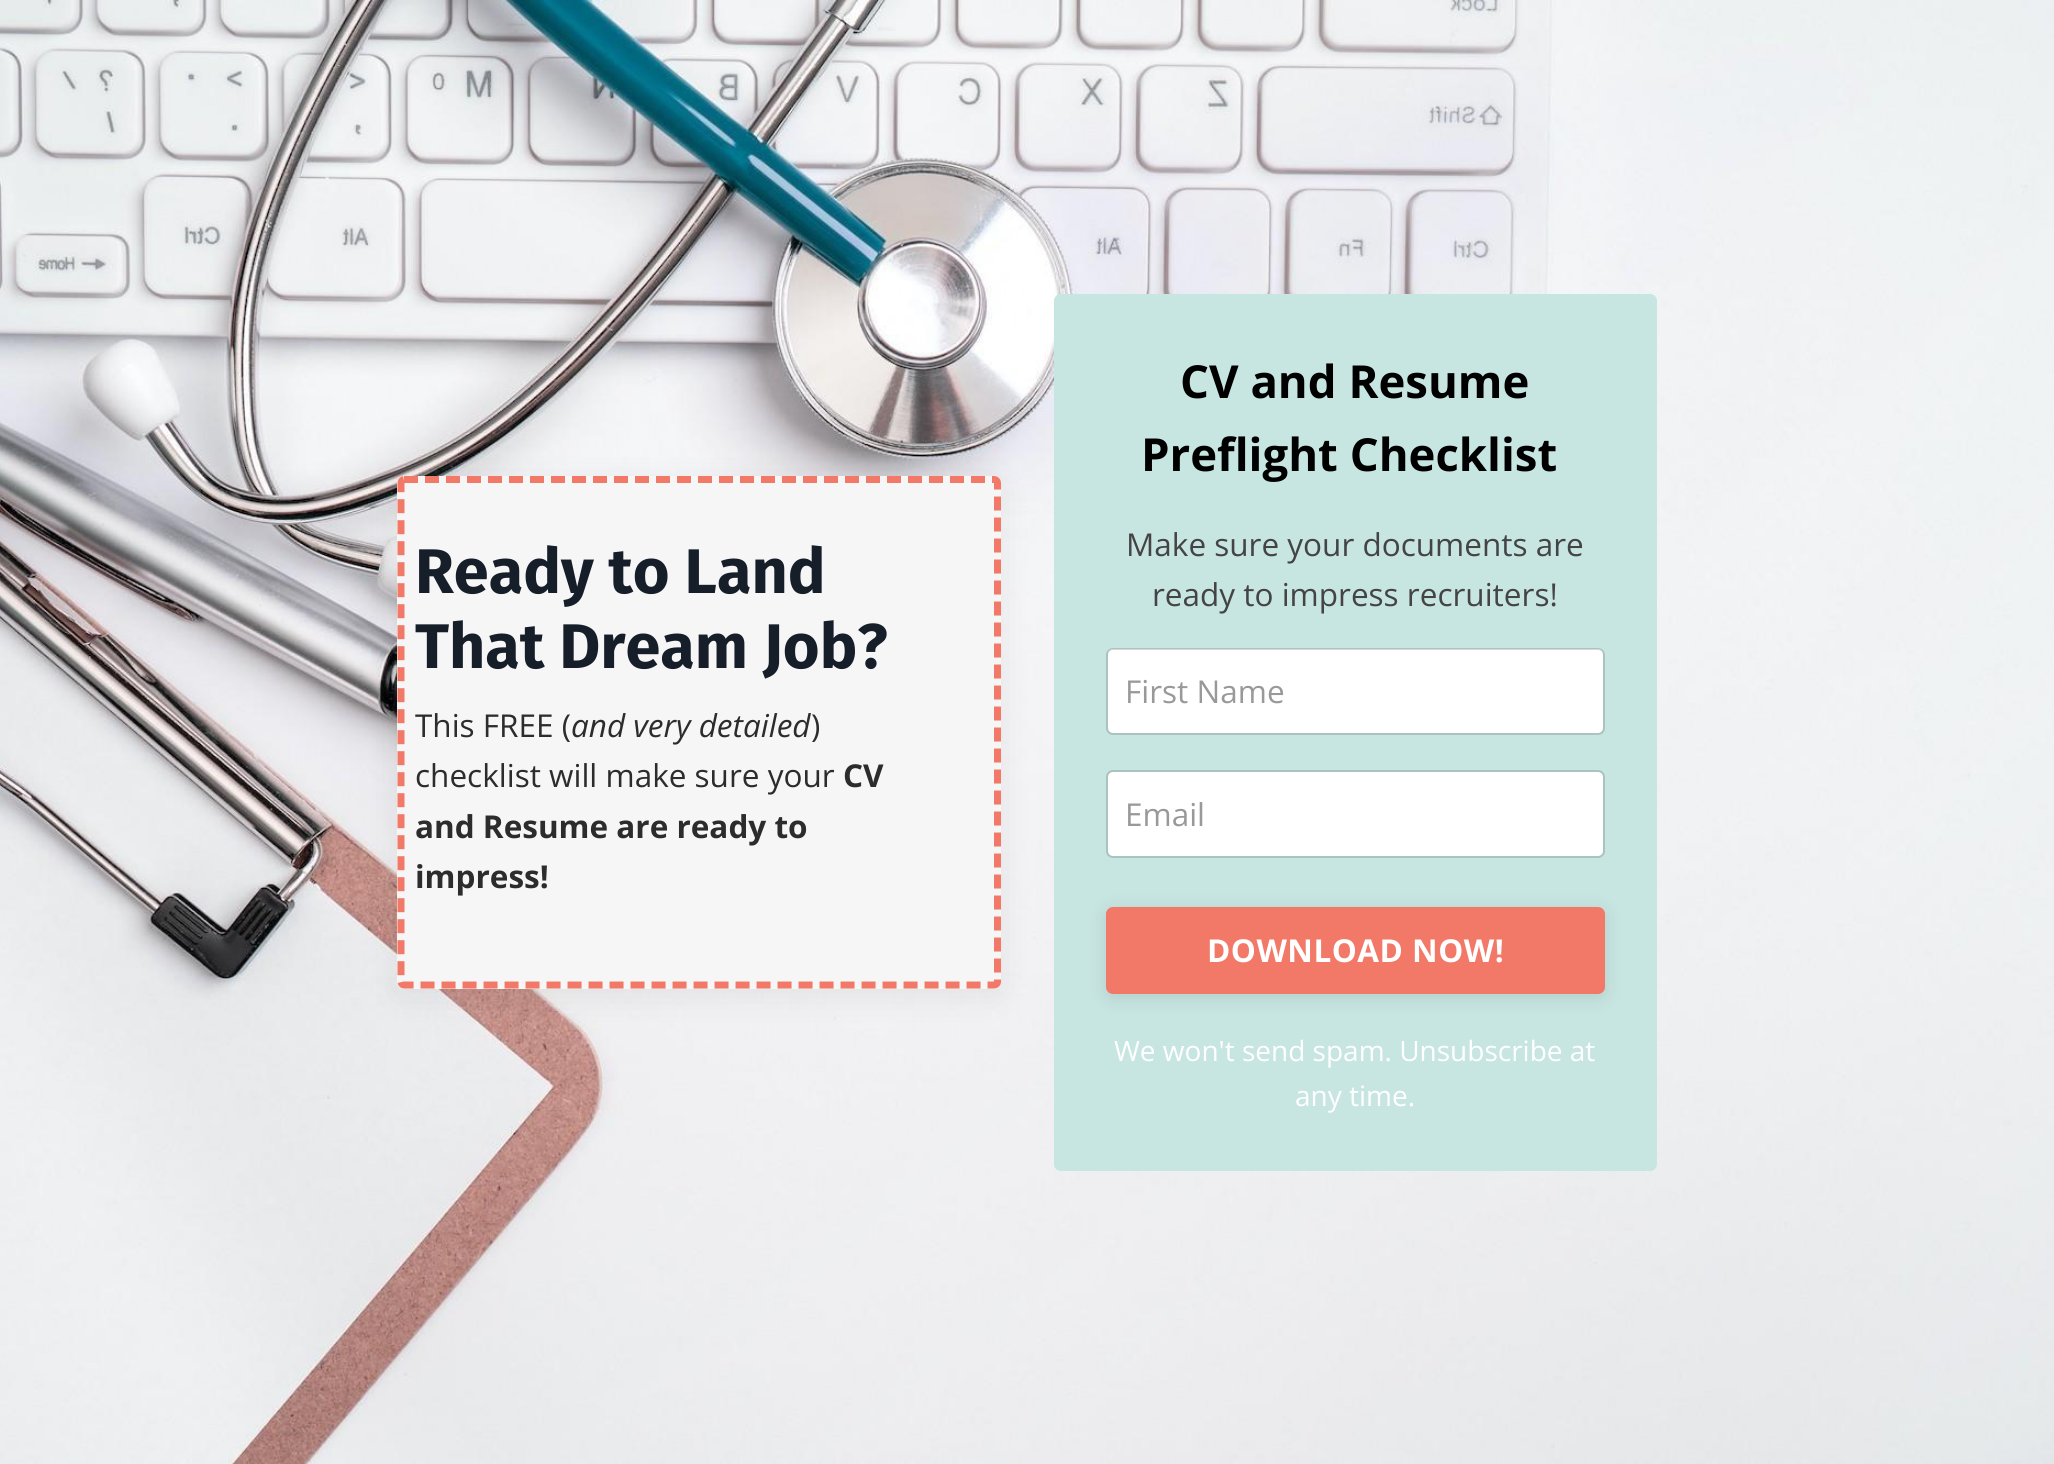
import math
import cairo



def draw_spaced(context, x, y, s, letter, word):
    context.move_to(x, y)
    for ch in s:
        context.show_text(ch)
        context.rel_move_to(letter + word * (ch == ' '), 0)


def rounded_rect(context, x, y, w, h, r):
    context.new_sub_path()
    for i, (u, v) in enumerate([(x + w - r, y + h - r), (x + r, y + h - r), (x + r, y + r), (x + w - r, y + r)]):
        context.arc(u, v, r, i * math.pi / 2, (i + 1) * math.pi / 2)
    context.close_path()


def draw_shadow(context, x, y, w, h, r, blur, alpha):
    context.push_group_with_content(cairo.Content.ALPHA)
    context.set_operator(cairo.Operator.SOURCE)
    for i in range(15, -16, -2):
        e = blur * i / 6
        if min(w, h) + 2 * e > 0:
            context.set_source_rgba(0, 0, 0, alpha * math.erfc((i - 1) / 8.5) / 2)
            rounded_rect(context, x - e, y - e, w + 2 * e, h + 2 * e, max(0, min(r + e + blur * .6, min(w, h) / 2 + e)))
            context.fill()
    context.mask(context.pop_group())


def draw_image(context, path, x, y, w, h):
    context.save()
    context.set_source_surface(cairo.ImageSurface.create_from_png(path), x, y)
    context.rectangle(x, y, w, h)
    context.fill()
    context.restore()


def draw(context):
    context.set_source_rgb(1, 1, 1)
    context.paint()
    draw_image(context, "images/1.png", 0, 0, 2054, 1464)
    context.set_source_rgb(0, 0, 0)
    draw_shadow(context, 397, 483, 604, 513, 7, 17.5, 0.07)
    context.set_source_rgb(246 / 255, 246 / 255, 246 / 255)
    rounded_rect(context, 397, 476, 604, 513, 7)
    context.fill()
    context.new_path()
    context.move_to(404, 479.5)
    context.line_to(994, 479.5)
    context.curve_to(996, 479.5, 997.5, 481, 997.5, 483)
    context.line_to(997.5, 982)
    context.curve_to(997.5, 983.5, 996, 985, 994, 985)
    context.line_to(404, 985)
    context.curve_to(402.5, 985, 401, 983.5, 401, 982)
    context.line_to(401, 483)
    context.curve_to(401, 481, 402.5, 479.5, 404, 479.5)
    context.close_path()
    context.set_source_rgb(242 / 255, 121 / 255, 103 / 255)
    context.set_line_width(7)
    context.set_dash([14, 7])
    context.stroke()
    context.set_source_rgb(199 / 255, 229 / 255, 225 / 255)
    rounded_rect(context, 1054, 294, 603, 877, 7)
    context.fill()
    context.set_source_rgb(1, 1, 1)
    rounded_rect(context, 1108, 649, 495, 84, 5)
    context.fill()
    rounded_rect(context, 1107, 649, 497, 85, 6)
    context.set_source_rgba(0, 0, 0, 0.15)
    context.set_line_width(2)
    context.set_dash([])
    context.stroke()
    context.set_source_rgb(1, 1, 1)
    rounded_rect(context, 1108, 772, 495, 84, 5)
    context.fill()
    rounded_rect(context, 1107, 771, 497, 86, 6)
    context.set_source_rgba(0, 0, 0, 0.15)
    context.stroke()
    context.set_source_rgb(0, 0, 0)
    draw_shadow(context, 1106, 910, 499, 88, 7, 9, 0.1)
    context.set_source_rgb(242 / 255, 121 / 255, 103 / 255)
    rounded_rect(context, 1108, 909, 495, 83, 5)
    context.fill_preserve()
    context.set_line_width(4)
    context.stroke()
    context.select_font_face("Fira Sans", cairo.FontSlant.NORMAL, cairo.FontWeight.BOLD)
    context.set_font_size(63)
    context.set_source_rgb(22 / 255, 30 / 255, 42 / 255)
    context.move_to(415, 593)
    context.show_text("Ready to Land")
    context.move_to(415, 668)
    context.show_text("That Dream Job?")
    context.select_font_face("Open Sans")
    context.set_font_size(31.5)
    context.set_source_rgb(44 / 255, 44 / 255, 44 / 255)
    context.move_to(415, 737)
    context.show_text("This FREE (")
    context.select_font_face("Open Sans", cairo.FontSlant.ITALIC)
    context.move_to(571, 737)
    context.show_text("and very detailed")
    context.select_font_face("Open Sans")
    context.move_to(811, 737)
    context.show_text(")")
    context.move_to(415, 787)
    context.show_text("checklist will make sure your")
    context.select_font_face("Open Sans", cairo.FontSlant.NORMAL, cairo.FontWeight.BOLD)
    context.move_to(843, 787)
    context.show_text("CV")
    context.move_to(415, 838)
    context.show_text("and Resume are ready to")
    context.move_to(415, 888)
    context.show_text("impress!")
    context.set_font_size(45.5)
    context.set_source_rgb(0, 0, 0)
    context.move_to(1180, 398)
    context.show_text("CV and Resume")
    context.move_to(1141, 471)
    context.show_text("Preflight Checklist")
    context.select_font_face("Open Sans")
    context.set_font_size(31.5)
    context.set_source_rgb(68 / 255, 68 / 255, 68 / 255)
    context.move_to(1126, 556)
    context.show_text("Make sure your documents are")
    context.move_to(1152, 606)
    context.show_text("ready to impress recruiters!")
    context.set_source_rgb(153 / 255, 153 / 255, 153 / 255)
    context.move_to(1125, 703)
    context.show_text("First Name")
    context.move_to(1125, 826)
    context.show_text("Email")
    context.select_font_face("Open Sans", cairo.FontSlant.NORMAL, cairo.FontWeight.BOLD)
    context.set_source_rgb(1, 1, 1)
    draw_spaced(context, 1207, 962, "DOWNLOAD NOW!", 0.5, 0)
    context.select_font_face("Open Sans")
    context.set_font_size(28)
    context.move_to(1114, 1061)
    context.show_text("We won't send spam. Unsubscribe at")
    context.move_to(1295, 1106)
    context.show_text("any time.")


surface = cairo.ImageSurface(cairo.Format.RGB24, 2054, 1464)
context = cairo.Context(surface)
options = cairo.FontOptions()
options.set_hint_metrics(cairo.HintMetrics.OFF)
options.set_hint_style(cairo.HintStyle.NONE)
context.set_font_options(options)
context.set_miter_limit(4)
draw(context)
surface.write_to_png("out.png")
